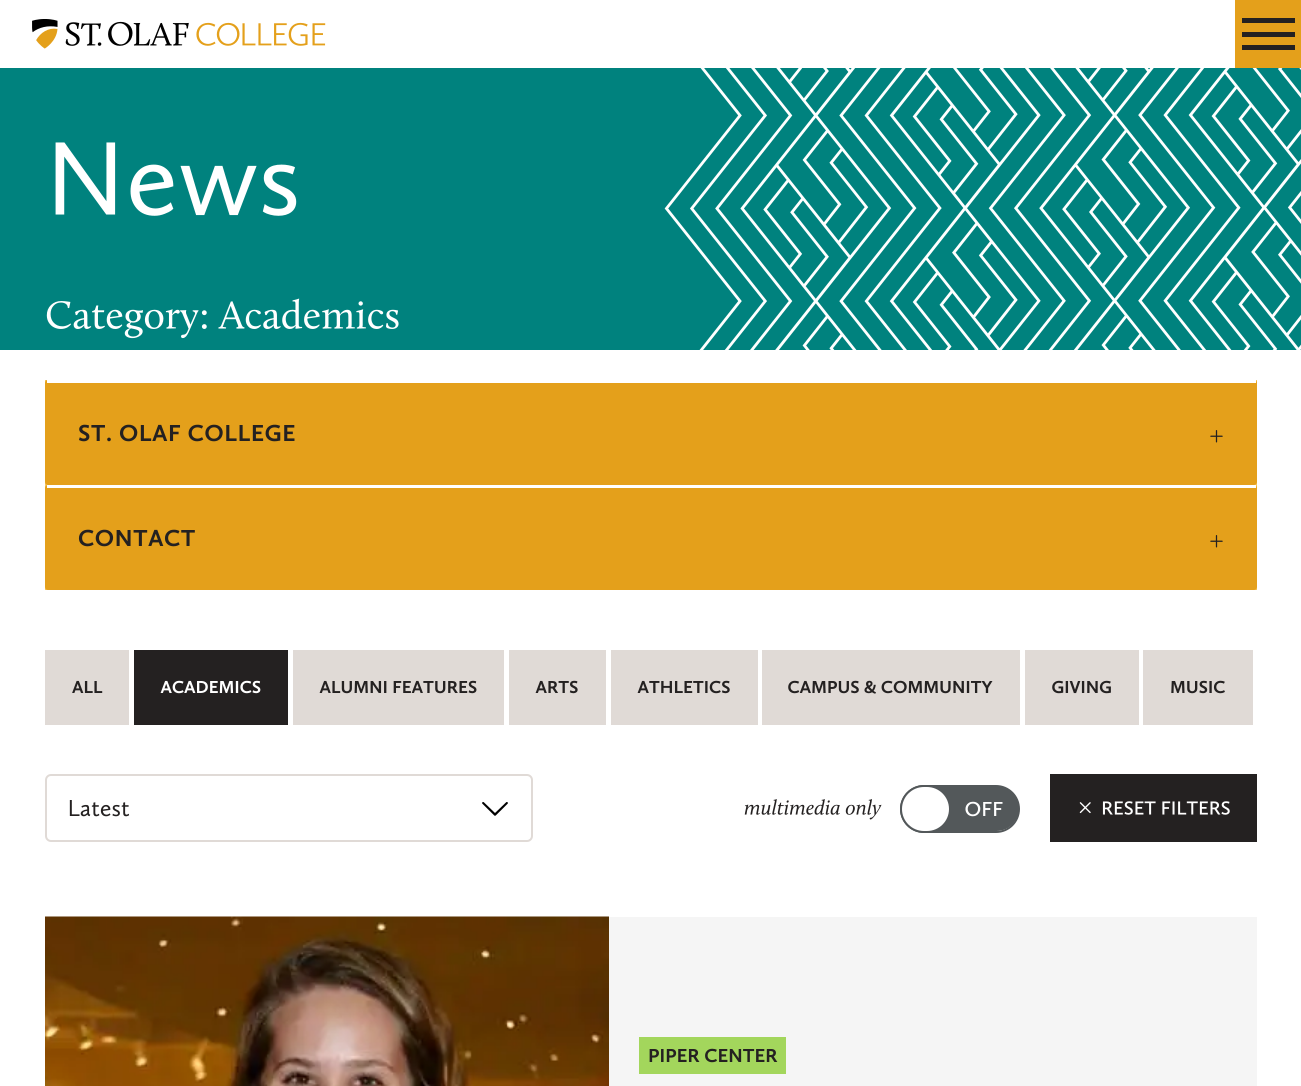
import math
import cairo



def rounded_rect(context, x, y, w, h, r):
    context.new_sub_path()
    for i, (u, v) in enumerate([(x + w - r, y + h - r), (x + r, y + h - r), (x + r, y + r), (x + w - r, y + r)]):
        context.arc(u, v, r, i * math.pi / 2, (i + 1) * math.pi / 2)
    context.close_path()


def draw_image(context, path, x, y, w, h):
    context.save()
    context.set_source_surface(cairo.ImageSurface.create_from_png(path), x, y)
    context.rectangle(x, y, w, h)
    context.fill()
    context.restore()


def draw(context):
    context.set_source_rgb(1, 1, 1)
    context.paint()
    draw_image(context, "images/1.png", 32, 19, 294, 30)
    context.set_source_rgb(228 / 255, 160 / 255, 27 / 255)
    context.rectangle(1235, 0, 66, 68)
    context.fill()
    context.set_source_rgb(36 / 255, 33 / 255, 33 / 255)
    context.rectangle(1242, 32, 53, 5)
    context.fill()
    context.rectangle(1242, 18, 53, 5)
    context.fill()
    context.rectangle(1242, 45, 53, 5)
    context.fill()
    context.set_source_rgb(0, 130 / 255, 126 / 255)
    context.rectangle(0, 68, 1301, 282)
    context.fill()
    draw_image(context, "images/2.png", 55, 142, 242, 74)
    draw_image(context, "images/3.png", 46, 298, 353, 41)
    draw_image(context, "images/4.png", 664, 68, 637, 282)
    context.set_source_rgb(247 / 255, 197 / 255, 90 / 255)
    context.rectangle(45, 380, 1212, 210)
    context.fill()
    context.set_source_rgb(228 / 255, 160 / 255, 27 / 255)
    rounded_rect(context, 45, 380, 1212, 105, 3)
    context.fill()
    context.set_source_rgb(1, 1, 1)
    context.rectangle(47, 380, 1209, 3)
    context.fill()
    draw_image(context, "images/5.png", 79, 424, 216, 18)
    draw_image(context, "images/6.png", 1210, 430, 13, 13)
    context.set_source_rgb(228 / 255, 160 / 255, 27 / 255)
    rounded_rect(context, 45, 485, 1212, 105, 3)
    context.fill()
    context.set_source_rgb(1, 1, 1)
    context.rectangle(47, 485, 1209, 3)
    context.fill()
    draw_image(context, "images/7.png", 78, 529, 117, 18)
    draw_image(context, "images/6.png", 1210, 535, 13, 13)
    context.set_source_rgb(224 / 255, 218 / 255, 214 / 255)
    context.rectangle(45, 650, 84, 75)
    context.fill()
    draw_image(context, "images/8.png", 72, 680, 31, 13)
    context.set_source_rgb(36 / 255, 33 / 255, 33 / 255)
    context.rectangle(134, 650, 154, 75)
    context.fill()
    draw_image(context, "images/9.png", 160, 680, 101, 14)
    context.set_source_rgb(224 / 255, 218 / 255, 214 / 255)
    context.rectangle(293, 650, 211, 75)
    context.fill()
    draw_image(context, "images/10.png", 319, 680, 158, 14)
    context.rectangle(509, 650, 97, 75)
    context.fill()
    draw_image(context, "images/11.png", 535, 680, 43, 14)
    context.rectangle(611, 650, 147, 75)
    context.fill()
    draw_image(context, "images/12.png", 637, 680, 93, 14)
    context.rectangle(762, 650, 258, 75)
    context.fill()
    draw_image(context, "images/13.png", 788, 680, 205, 14)
    context.rectangle(1025, 650, 114, 75)
    context.fill()
    draw_image(context, "images/14.png", 1052, 680, 59, 14)
    context.rectangle(1143, 650, 110, 75)
    context.fill()
    draw_image(context, "images/15.png", 1171, 680, 54, 14)
    draw_image(context, "images/16.png", 482, 802, 26, 14)
    rounded_rect(context, 46, 775, 486, 66, 5)
    context.stroke()
    draw_image(context, "images/17.png", 69, 800, 61, 17)
    draw_image(context, "images/18.png", 744, 799, 138, 21)
    rounded_rect(context, 901, 786, 118, 46, 23)
    context.set_source_rgb(83 / 255, 88 / 255, 90 / 255)
    context.stroke()
    rounded_rect(context, 902, 786, 117, 45, 22.5)
    context.fill()
    context.set_source_rgb(1, 1, 1)
    rounded_rect(context, 901, 786, 49, 46, 23)
    context.fill_preserve()
    context.set_source_rgb(83 / 255, 88 / 255, 90 / 255)
    context.stroke()
    draw_image(context, "images/19.png", 965, 801, 38, 16)
    context.set_source_rgb(36 / 255, 33 / 255, 33 / 255)
    context.rectangle(1050, 774, 207, 68)
    context.fill()
    draw_image(context, "images/20.png", 1079, 802, 12, 12)
    draw_image(context, "images/21.png", 1102, 801, 128, 14)
    draw_image(context, "images/22.png", 45, 916, 564, 170)
    context.set_source_rgb(245 / 255, 245 / 255, 245 / 255)
    context.rectangle(609, 917, 648, 169)
    context.fill()
    context.set_source_rgb(163 / 255, 214 / 255, 92 / 255)
    context.rectangle(639, 1037, 147, 37)
    context.fill()
    draw_image(context, "images/23.png", 649, 1048, 129, 15)


surface = cairo.ImageSurface(cairo.Format.RGB24, 1301, 1086)
context = cairo.Context(surface)
options = cairo.FontOptions()
options.set_hint_metrics(cairo.HintMetrics.OFF)
options.set_hint_style(cairo.HintStyle.NONE)
context.set_font_options(options)
context.set_miter_limit(4)
draw(context)
surface.write_to_png("out.png")
